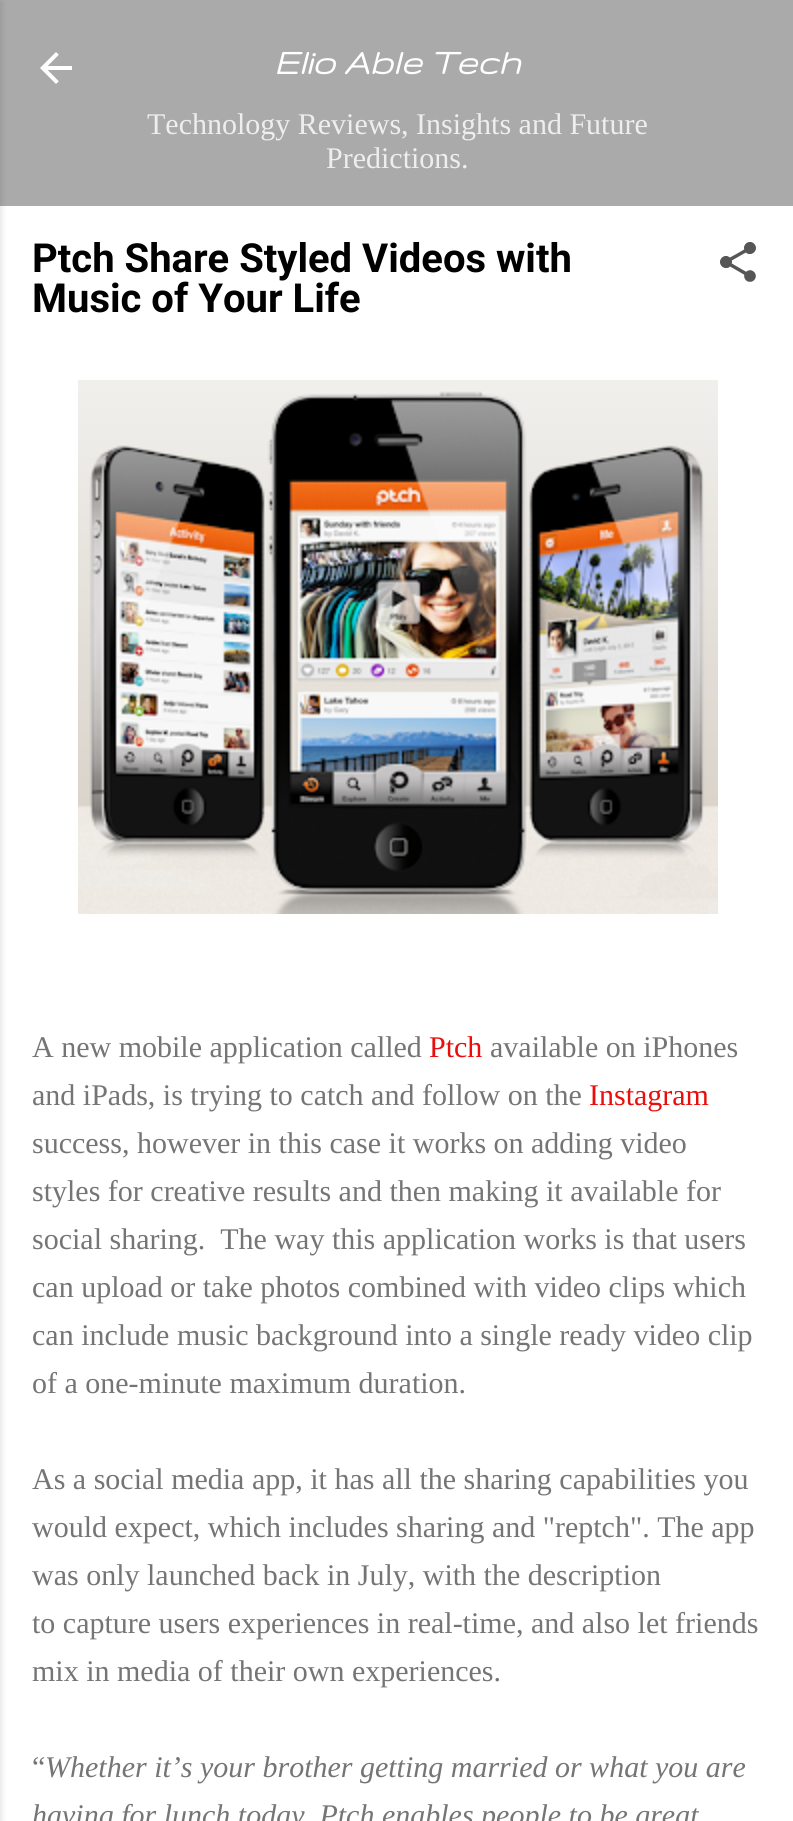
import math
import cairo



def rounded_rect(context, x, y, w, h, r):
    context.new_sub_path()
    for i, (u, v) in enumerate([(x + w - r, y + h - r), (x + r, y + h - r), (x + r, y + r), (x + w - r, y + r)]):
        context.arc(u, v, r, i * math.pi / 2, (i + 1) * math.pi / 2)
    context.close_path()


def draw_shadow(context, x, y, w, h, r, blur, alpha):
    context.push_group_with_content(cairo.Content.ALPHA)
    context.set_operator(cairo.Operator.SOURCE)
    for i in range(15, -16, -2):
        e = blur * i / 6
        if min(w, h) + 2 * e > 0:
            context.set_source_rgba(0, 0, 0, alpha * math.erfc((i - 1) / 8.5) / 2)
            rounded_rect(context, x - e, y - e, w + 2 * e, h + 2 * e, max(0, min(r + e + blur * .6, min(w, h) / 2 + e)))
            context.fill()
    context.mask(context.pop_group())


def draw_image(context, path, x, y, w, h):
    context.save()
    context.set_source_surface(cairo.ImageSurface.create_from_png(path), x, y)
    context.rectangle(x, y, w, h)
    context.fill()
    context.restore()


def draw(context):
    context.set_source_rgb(170 / 255, 170 / 255, 170 / 255)
    context.paint()
    context.set_source_rgb(1, 1, 1)
    context.rectangle(0, 206, 793, 1615)
    context.fill()
    context.set_source_rgb(0, 0, 0)
    draw_shadow(context, -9, 2, 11, 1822, 0, 3, 0.1)
    draw_image(context, "images/1.png", 40, 52, 32, 32)
    draw_image(context, "images/2.png", 720, 242, 36, 40)
    draw_image(context, "images/3.png", 78, 380, 640, 534)
    context.select_font_face("Gruppo", cairo.FontSlant.ITALIC, cairo.FontWeight.BOLD)
    context.set_font_size(38.5)
    context.set_source_rgb(1, 1, 1)
    context.move_to(274, 74)
    context.show_text("Elio Able Tech")
    context.select_font_face("Liberation Serif")
    context.set_font_size(30)
    context.set_source_rgb(238 / 255, 238 / 255, 238 / 255)
    context.move_to(147, 134)
    context.show_text("Technology Reviews, Insights and Future")
    context.move_to(326, 168)
    context.show_text("Predictions.")
    context.select_font_face("Roboto", cairo.FontSlant.NORMAL, cairo.FontWeight.BOLD)
    context.set_font_size(40)
    context.set_source_rgb(0, 0, 0)
    context.move_to(32, 272)
    context.show_text("Ptch Share Styled Videos with")
    context.move_to(32, 312)
    context.show_text("Music of Your Life")
    context.select_font_face("Liberation Serif")
    context.set_font_size(30)
    context.set_source_rgb(117 / 255, 117 / 255, 117 / 255)
    context.move_to(32, 1057)
    context.show_text("A new mobile application called")
    context.set_source_rgb(234 / 255, 13 / 255, 13 / 255)
    context.move_to(429, 1057)
    context.show_text("Ptch")
    context.set_source_rgb(117 / 255, 117 / 255, 117 / 255)
    context.move_to(490, 1057)
    context.show_text("available on iPhones")
    context.move_to(32, 1105)
    context.show_text("and iPads, is trying to catch and follow on the")
    context.set_source_rgb(234 / 255, 13 / 255, 13 / 255)
    context.move_to(589, 1105)
    context.show_text("Instagram")
    context.set_source_rgb(117 / 255, 117 / 255, 117 / 255)
    context.move_to(32, 1153)
    context.show_text("success, however in this case it works on adding video")
    context.move_to(32, 1201)
    context.show_text("styles for creative results and then making it available for")
    context.move_to(32, 1249)
    context.show_text("social sharing.  The way this application works is that users")
    context.move_to(32, 1297)
    context.show_text("can upload or take photos combined with video clips which")
    context.move_to(32, 1345)
    context.show_text("can include music background into a single ready video clip")
    context.move_to(32, 1393)
    context.show_text("of a one-minute maximum duration.")
    context.move_to(32, 1489)
    context.show_text("As a social media app, it has all the sharing capabilities you")
    context.move_to(32, 1537)
    context.show_text("would expect, which includes sharing and \"reptch\". The app")
    context.move_to(32, 1585)
    context.show_text("was only launched back in July, with the description")
    context.move_to(32, 1633)
    context.show_text("to capture users experiences in real-time, and also let friends")
    context.move_to(32, 1681)
    context.show_text("mix in media of their own experiences.")
    context.move_to(32, 1777)
    context.show_text("“")
    context.select_font_face("Liberation Serif", cairo.FontSlant.ITALIC)
    context.move_to(45, 1777)
    context.show_text("Whether it’s your brother getting married or what you are")
    context.move_to(32, 1825)
    context.show_text("having for lunch today, Ptch enables people to be great")


surface = cairo.ImageSurface(cairo.Format.RGB24, 793, 1821)
context = cairo.Context(surface)
options = cairo.FontOptions()
options.set_hint_metrics(cairo.HintMetrics.OFF)
options.set_hint_style(cairo.HintStyle.NONE)
context.set_font_options(options)
context.set_miter_limit(4)
draw(context)
surface.write_to_png("out.png")
